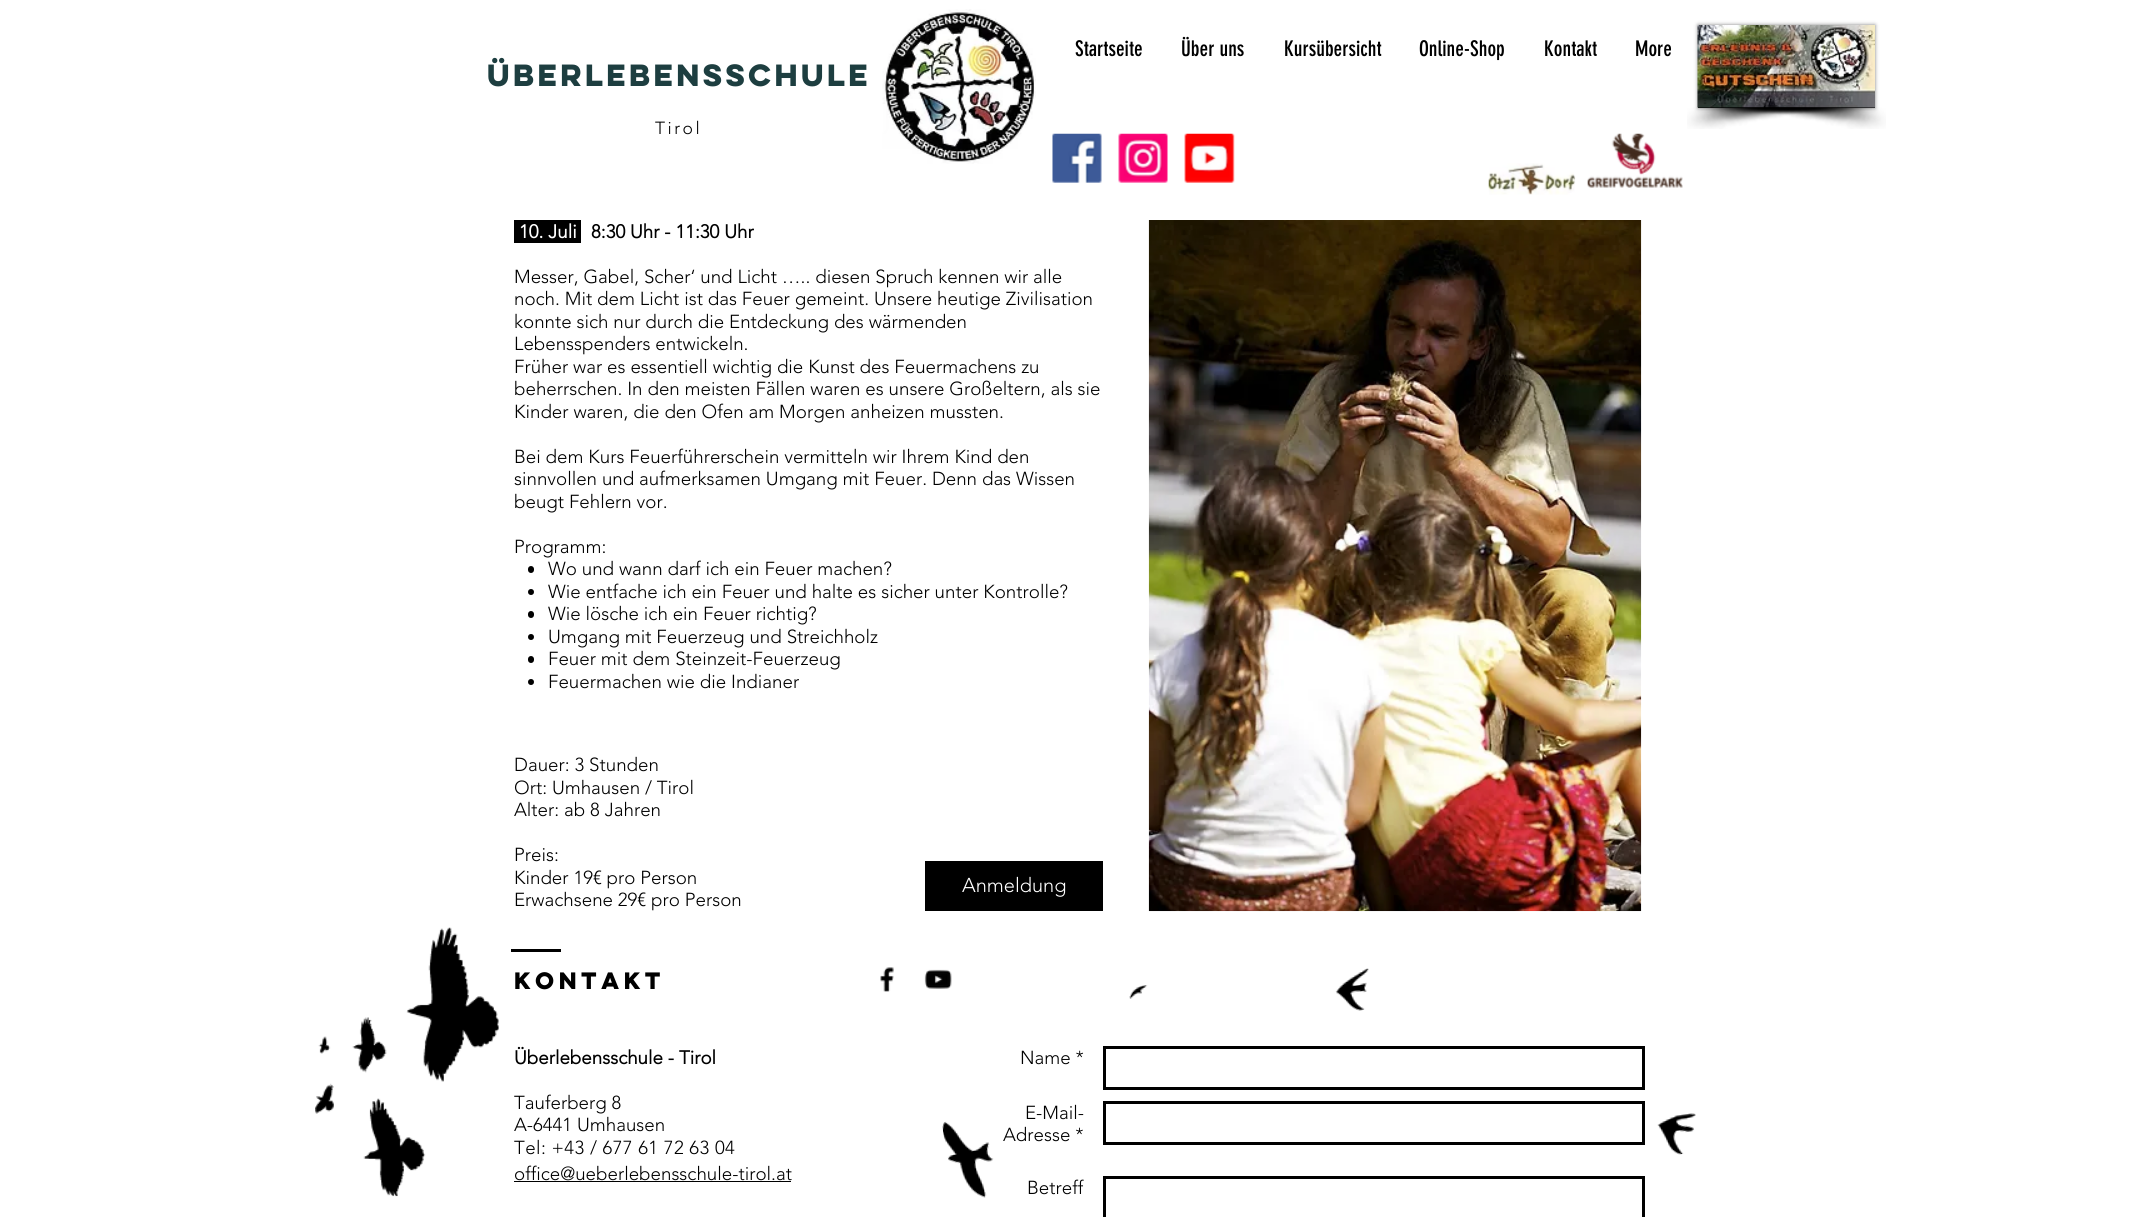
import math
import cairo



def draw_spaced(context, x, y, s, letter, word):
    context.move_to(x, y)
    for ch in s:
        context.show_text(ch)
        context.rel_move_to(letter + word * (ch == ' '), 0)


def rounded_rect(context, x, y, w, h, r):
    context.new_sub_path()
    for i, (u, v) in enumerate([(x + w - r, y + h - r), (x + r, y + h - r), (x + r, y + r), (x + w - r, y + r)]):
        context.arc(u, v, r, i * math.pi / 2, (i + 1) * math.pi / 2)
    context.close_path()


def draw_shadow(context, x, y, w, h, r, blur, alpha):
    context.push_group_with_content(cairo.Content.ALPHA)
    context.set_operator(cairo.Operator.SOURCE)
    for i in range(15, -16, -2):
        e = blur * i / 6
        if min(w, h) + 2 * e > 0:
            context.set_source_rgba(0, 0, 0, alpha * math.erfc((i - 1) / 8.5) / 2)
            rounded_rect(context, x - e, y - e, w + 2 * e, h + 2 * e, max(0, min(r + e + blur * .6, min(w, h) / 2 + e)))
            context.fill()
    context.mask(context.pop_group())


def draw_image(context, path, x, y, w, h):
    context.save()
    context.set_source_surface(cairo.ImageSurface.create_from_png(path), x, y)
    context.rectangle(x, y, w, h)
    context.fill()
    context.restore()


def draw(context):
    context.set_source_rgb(1, 1, 1)
    context.paint()
    draw_image(context, "images/1.png", 882, 9, 154, 155)
    context.set_source_rgb(0, 0, 0)
    draw_shadow(context, 1698, 25, 177, 83, 0, 2, 0.5)
    context.set_source_rgb(0, 0, 0)
    context.rectangle(1698, 107, 177, 1)
    context.fill()
    draw_image(context, "images/2.png", 1697, 25, 178, 83)
    draw_image(context, "images/3.png", 1687, 107, 185, 22)
    draw_image(context, "images/4.png", 1700, 107, 186, 22)
    draw_image(context, "images/5.png", 1052, 133, 50, 50)
    draw_image(context, "images/6.png", 1118, 133, 50, 50)
    draw_image(context, "images/7.png", 1184, 133, 51, 50)
    draw_image(context, "images/8.png", 1488, 163, 88, 32)
    draw_image(context, "images/9.png", 1587, 133, 96, 55)
    context.rectangle(514, 220, 67, 23)
    context.fill()
    rounded_rect(context, 528, 566, 6, 7, 3)
    context.fill()
    context.arc(531, 592, 3, 0, 2 * math.pi)
    context.fill()
    rounded_rect(context, 528, 611, 6, 7, 3)
    context.fill()
    context.arc(531, 637, 3, 0, 2 * math.pi)
    context.fill()
    rounded_rect(context, 528, 656, 6, 7, 3)
    context.fill()
    context.arc(531, 682, 3, 0, 2 * math.pi)
    context.fill()
    draw_image(context, "images/10.png", 1148, 220, 494, 692)
    context.rectangle(925, 861, 178, 50)
    context.fill()
    context.set_source_rgba(1, 1, 1, 0.42)
    context.rectangle(1149, 911, 492, 1)
    context.fill()
    draw_image(context, "images/11.png", 315, 927, 184, 270)
    context.set_source_rgb(0, 0, 0)
    context.rectangle(511, 949, 50, 3)
    context.fill()
    draw_image(context, "images/12.png", 880, 967, 14, 25)
    draw_image(context, "images/13.png", 924, 969, 28, 20)
    draw_image(context, "images/14.png", 942, 968, 754, 230)
    context.rectangle(514, 1181, 277, 1)
    context.fill()
    context.rectangle(1104.5, 1047.5, 539, 41)
    context.set_line_width(3)
    context.stroke()
    context.rectangle(1104.5, 1102.5, 539, 41)
    context.stroke()
    context.rectangle(1104.5, 1177.5, 539, 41)
    context.stroke()
    context.select_font_face("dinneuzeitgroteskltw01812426")
    context.set_font_size(21.25)
    context.move_to(1075, 56)
    context.show_text("Startseite")
    context.move_to(1181, 56)
    context.show_text("Über uns")
    context.move_to(1284, 56)
    context.show_text("Kursübersicht")
    context.move_to(1419, 56)
    context.show_text("Online-Shop")
    context.move_to(1544, 56)
    context.show_text("Kontakt")
    context.move_to(1635, 56)
    context.show_text("More")
    context.select_font_face("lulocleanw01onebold", cairo.FontSlant.NORMAL, cairo.FontWeight.BOLD)
    context.set_font_size(27.5)
    context.set_source_rgb(29 / 255, 62 / 255, 64 / 255)
    draw_spaced(context, 487, 86, "Überlebensschule", -2.75, 0)
    context.select_font_face("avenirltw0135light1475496 Light")
    context.set_font_size(17.5)
    context.set_source_rgb(0, 0, 0)
    draw_spaced(context, 655, 134, "Tirol", 2.5, 0)
    context.select_font_face("avenirltw0135light1475496", cairo.FontSlant.NORMAL, cairo.FontWeight.BOLD)
    context.set_font_size(18.75)
    context.set_source_rgb(1, 1, 1)
    context.move_to(519, 238)
    context.show_text("10. Juli")
    context.set_source_rgb(0, 0, 0)
    context.move_to(591, 238)
    context.show_text("8:30 Uhr - 11:30 Uhr")
    context.select_font_face("avenirltw0135light1475496 Light")
    context.move_to(514, 283)
    context.show_text("Messer, Gabel, Scher‘ und Licht ….. diesen Spruch kennen wir alle")
    context.move_to(514, 305)
    context.show_text("noch. Mit dem Licht ist das Feuer gemeint. Unsere heutige Zivilisation")
    context.move_to(514, 328)
    context.show_text("konnte sich nur durch die Entdeckung des wärmenden")
    context.move_to(514, 350)
    context.show_text("Lebensspenders entwickeln.")
    context.move_to(514, 373)
    context.show_text("Früher war es essentiell wichtig die Kunst des Feuermachens zu")
    context.move_to(514, 395)
    context.show_text("beherrschen. In den meisten Fällen waren es unsere Großeltern, als sie")
    context.move_to(514, 418)
    context.show_text("Kinder waren, die den Ofen am Morgen anheizen mussten.")
    context.move_to(514, 463)
    context.show_text("Bei dem Kurs Feuerführerschein vermitteln wir Ihrem Kind den")
    context.move_to(514, 485)
    context.show_text("sinnvollen und aufmerksamen Umgang mit Feuer. Denn das Wissen")
    context.move_to(514, 508)
    context.show_text("beugt Fehlern vor.")
    context.move_to(514, 553)
    context.show_text("Programm:")
    context.move_to(548, 575)
    context.show_text("Wo und wann darf ich ein Feuer machen?")
    context.move_to(548, 598)
    context.show_text("Wie entfache ich ein Feuer und halte es sicher unter Kontrolle?")
    context.move_to(548, 620)
    context.show_text("Wie lösche ich ein Feuer richtig?")
    context.move_to(548, 643)
    context.show_text("Umgang mit Feuerzeug und Streichholz")
    context.move_to(548, 665)
    context.show_text("Feuer mit dem Steinzeit-Feuerzeug")
    context.move_to(548, 688)
    context.show_text("Feuermachen wie die Indianer")
    context.move_to(514, 771)
    context.show_text("Dauer: 3 Stunden")
    context.move_to(514, 794)
    context.show_text("Ort: Umhausen / Tirol")
    context.move_to(514, 816)
    context.show_text("Alter: ab 8 Jahren")
    context.move_to(514, 861)
    context.show_text("Preis:")
    context.move_to(514, 884)
    context.show_text("Kinder 19€ pro Person")
    context.move_to(514, 906)
    context.show_text("Erwachsene 29€ pro Person")
    context.set_font_size(20)
    context.set_source_rgb(1, 1, 1)
    context.move_to(962, 892)
    context.show_text("Anmeldung")
    context.select_font_face("lulocleanw01onebold", cairo.FontSlant.NORMAL, cairo.FontWeight.BOLD)
    context.set_font_size(21.25)
    context.set_source_rgb(0, 0, 0)
    context.move_to(514, 989)
    context.show_text("kontakt")
    context.select_font_face("avenirltw0135light1475496", cairo.FontSlant.NORMAL, cairo.FontWeight.BOLD)
    context.set_font_size(18.75)
    context.move_to(514, 1064)
    context.show_text("Überlebensschule - Tirol")
    context.select_font_face("avenirltw0135light1475496 Light")
    context.move_to(514, 1109)
    context.show_text("Tauferberg 8")
    context.move_to(514, 1131)
    context.show_text("A-6441 Umhausen")
    draw_spaced(context, 514, 1154, "Tel: +43 / 677 61 72 63 04", 0.4, 0)
    context.move_to(514, 1180)
    context.show_text("office@ueberlebensschule-tirol.at")
    context.move_to(1020, 1064)
    context.show_text("Name *")
    context.move_to(1025, 1119)
    context.show_text("E-Mail-")
    context.move_to(1003, 1141)
    context.show_text("Adresse *")
    context.move_to(1027, 1194)
    context.show_text("Betreff")


surface = cairo.ImageSurface(cairo.Format.RGB24, 2154, 1217)
context = cairo.Context(surface)
options = cairo.FontOptions()
options.set_hint_metrics(cairo.HintMetrics.OFF)
options.set_hint_style(cairo.HintStyle.NONE)
context.set_font_options(options)
context.set_miter_limit(4)
draw(context)
surface.write_to_png("out.png")
